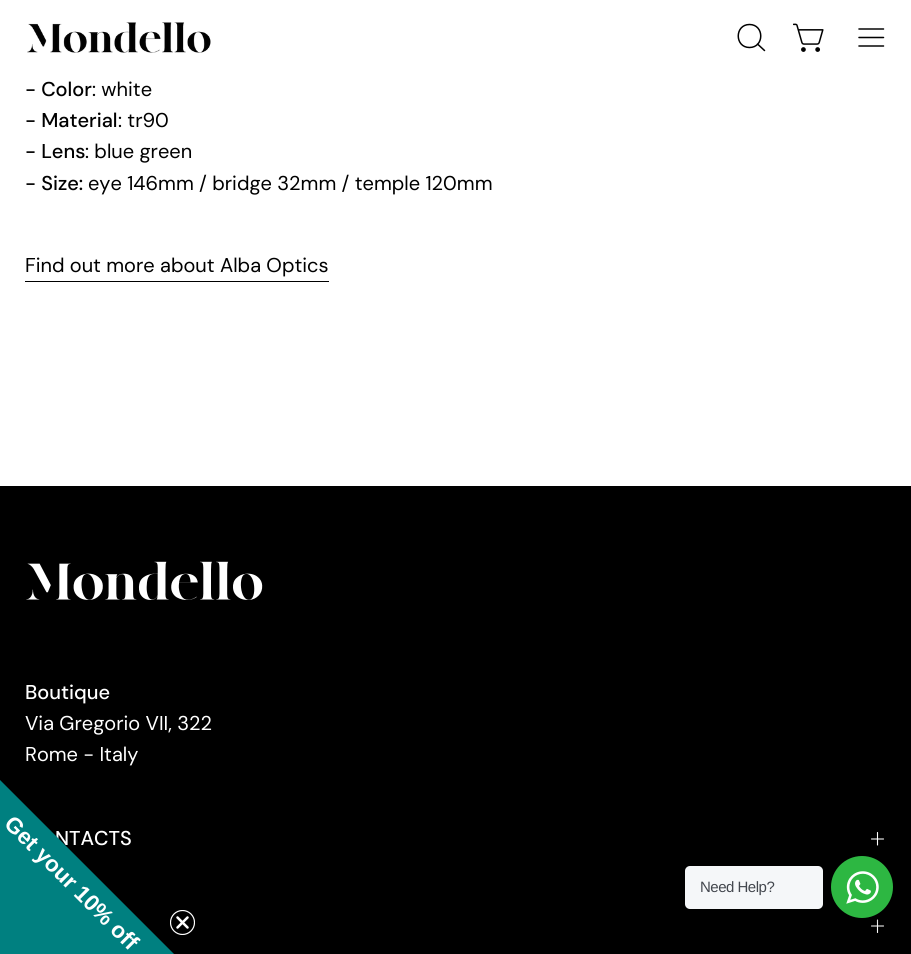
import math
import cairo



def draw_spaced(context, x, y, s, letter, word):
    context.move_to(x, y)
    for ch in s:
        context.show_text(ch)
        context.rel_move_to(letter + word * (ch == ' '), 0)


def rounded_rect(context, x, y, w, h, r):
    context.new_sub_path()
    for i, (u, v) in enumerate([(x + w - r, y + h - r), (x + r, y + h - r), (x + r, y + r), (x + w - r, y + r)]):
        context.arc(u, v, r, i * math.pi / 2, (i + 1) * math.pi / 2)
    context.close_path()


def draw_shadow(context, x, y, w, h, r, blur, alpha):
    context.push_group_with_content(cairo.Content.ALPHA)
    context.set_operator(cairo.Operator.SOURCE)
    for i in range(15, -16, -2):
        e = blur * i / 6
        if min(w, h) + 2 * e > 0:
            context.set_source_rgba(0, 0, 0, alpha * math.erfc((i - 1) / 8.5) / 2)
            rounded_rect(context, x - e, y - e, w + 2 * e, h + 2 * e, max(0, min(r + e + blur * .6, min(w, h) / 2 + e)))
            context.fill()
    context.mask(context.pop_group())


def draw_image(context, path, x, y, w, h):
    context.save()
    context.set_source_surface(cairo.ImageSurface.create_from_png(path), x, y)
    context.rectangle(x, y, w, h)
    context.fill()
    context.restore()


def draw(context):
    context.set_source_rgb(1, 1, 1)
    context.paint()
    draw_image(context, "images/1.png", 27, 22, 184, 31)
    context.new_path()
    context.move_to(749.5, 47.5)
    context.curve_to(764.5, 47.5, 764.5, 24.5, 749.5, 24.5)
    context.curve_to(734.5, 24.5, 734.5, 47.5, 749.5, 47.5)
    context.close_path()
    context.move_to(757.5, 44)
    context.line_to(764.5, 50.5)
    context.set_source_rgb(0, 0, 0)
    context.set_line_width(1.5)
    context.set_line_cap(cairo.LineCap.ROUND)
    context.set_line_join(cairo.LineJoin.ROUND)
    context.stroke()
    draw_image(context, "images/2.png", 793, 23, 31, 29)
    context.new_path()
    context.move_to(859, 37.5)
    context.line_to(883.5, 37.5)
    context.move_to(859, 29)
    context.line_to(883.5, 29)
    context.move_to(859, 46)
    context.line_to(883.5, 46)
    context.stroke()
    context.rectangle(25, 281, 304, 1)
    context.fill()
    context.rectangle(0, 486, 911, 468)
    context.fill()
    draw_image(context, "images/3.png", 26, 561, 237, 39)
    context.new_path()
    context.move_to(871.5, 839)
    context.line_to(883.5, 839)
    context.move_to(877.5, 832.5)
    context.line_to(877.5, 845)
    context.set_source_rgb(1, 1, 1)
    context.set_line_width(1.1)
    context.stroke()
    context.new_path()
    context.move_to(871.5, 926)
    context.line_to(883.5, 926)
    context.move_to(877.5, 920)
    context.line_to(877.5, 932.5)
    context.stroke()
    context.set_source_rgb(0, 0, 0)
    draw_shadow(context, 829, 861, 66, 67, 33, 5, 0.14)
    context.set_source_rgb(245 / 255, 247 / 255, 249 / 255)
    rounded_rect(context, 685, 866, 138, 43, 5)
    context.fill()
    context.set_source_rgb(45 / 255, 183 / 255, 66 / 255)
    context.arc(862, 887, 31, 0, 2 * math.pi)
    context.fill()
    draw_image(context, "images/4.png", 846, 871, 33, 33)
    context.select_font_face("DM Sans Medium")
    context.set_font_size(20)
    context.set_source_rgb(0, 0, 0)
    context.move_to(25, 96)
    context.show_text("- Color")
    context.select_font_face("DM Sans")
    context.move_to(92, 96)
    context.show_text(": white")
    context.select_font_face("DM Sans Medium")
    context.move_to(25, 127)
    context.show_text("- Material")
    context.select_font_face("DM Sans")
    context.move_to(118, 127)
    context.show_text(": tr90")
    context.select_font_face("DM Sans Medium")
    context.move_to(25, 158)
    context.show_text("- Lens")
    context.select_font_face("DM Sans")
    context.move_to(85, 158)
    context.show_text(": blue green")
    context.select_font_face("DM Sans Medium")
    context.move_to(25, 190)
    context.show_text("- Size:")
    context.select_font_face("DM Sans")
    context.move_to(88, 190)
    context.show_text("eye 146mm / bridge 32mm / temple 120mm")
    context.move_to(25, 272)
    context.show_text("Find out more about Alba Optics")
    context.select_font_face("DM Sans Medium")
    context.set_source_rgb(1, 1, 1)
    context.move_to(25, 699)
    context.show_text("Boutique")
    context.select_font_face("DM Sans")
    context.move_to(25, 730)
    context.show_text("Via Gregorio VII, 322")
    context.move_to(25, 761)
    context.show_text("Rome - Italy")
    context.select_font_face("DM Sans Medium")
    context.move_to(55, 845)
    context.show_text("NTACTS")
    context.set_source_rgb(0, 128 / 255, 128 / 255)
    context.new_path()
    context.move_to(0, 780)
    context.line_to(0, 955)
    context.line_to(175, 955)
    context.close_path()
    context.fill()
    context.select_font_face("Liberation Sans", cairo.FontSlant.NORMAL, cairo.FontWeight.BOLD)
    context.set_font_size(22.5)
    context.set_source_rgb(1, 1, 1)
    context.save()
    context.translate(3, 825)
    context.rotate(45 * math.pi / 180)
    context.move_to(0, 0)
    context.show_text("Get your 10% off")
    context.restore()
    context.save()
    context.rectangle(170, 910, 25, 25)
    context.clip()
    context.arc(182.5, 922.5, 12, 0, 2 * math.pi)
    context.set_line_width(1.2)
    context.set_line_cap(cairo.LineCap.BUTT)
    context.set_line_join(cairo.LineJoin.MITER)
    context.stroke()
    context.restore()
    context.new_path()
    context.move_to(177.5, 917.5)
    context.line_to(187.5, 927.5)
    context.move_to(177.5, 927.5)
    context.line_to(187.5, 917.5)
    context.close_path()
    context.set_line_width(2.5)
    context.stroke()
    context.select_font_face("Liberation Sans")
    context.set_font_size(15)
    context.set_source_rgb(67 / 255, 71 / 255, 78 / 255)
    draw_spaced(context, 700, 892, "Need Help?", -0.5, 0)


surface = cairo.ImageSurface(cairo.Format.RGB24, 911, 954)
context = cairo.Context(surface)
options = cairo.FontOptions()
options.set_hint_metrics(cairo.HintMetrics.OFF)
options.set_hint_style(cairo.HintStyle.NONE)
context.set_font_options(options)
context.set_miter_limit(4)
draw(context)
surface.write_to_png("out.png")
